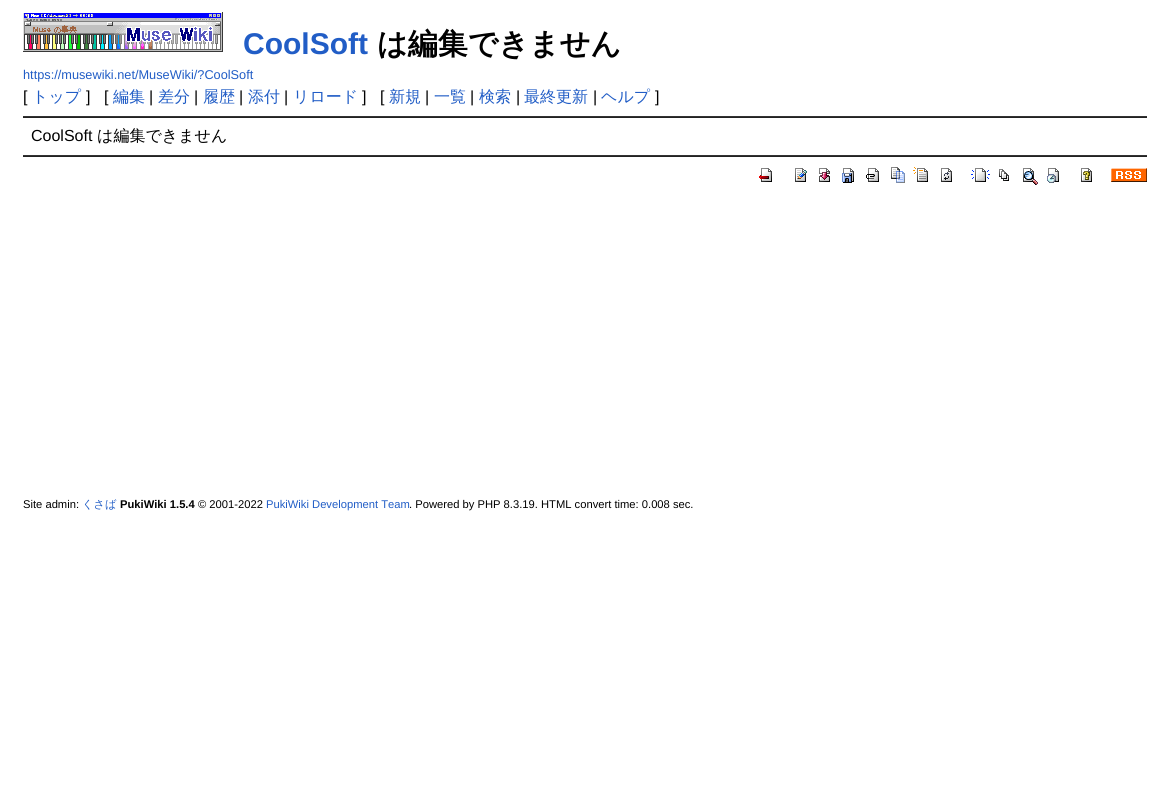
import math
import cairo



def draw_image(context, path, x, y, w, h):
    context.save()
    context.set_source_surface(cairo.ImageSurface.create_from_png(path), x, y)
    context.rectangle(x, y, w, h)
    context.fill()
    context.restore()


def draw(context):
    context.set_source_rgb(1, 1, 1)
    context.paint()
    draw_image(context, "images/1.png", 23, 12, 200, 40)
    context.set_source_rgb(51 / 255, 51 / 255, 51 / 255)
    context.rectangle(23, 116, 1124, 1)
    context.fill()
    context.set_source_rgb(34 / 255, 34 / 255, 34 / 255)
    context.rectangle(23, 117, 1124, 1)
    context.fill()
    context.set_source_rgb(51 / 255, 51 / 255, 51 / 255)
    context.rectangle(23, 155, 1124, 1)
    context.fill()
    context.set_source_rgb(34 / 255, 34 / 255, 34 / 255)
    context.rectangle(23, 156, 1124, 1)
    context.fill()
    draw_image(context, "images/2.png", 759, 168, 13, 14)
    draw_image(context, "images/3.png", 795, 168, 12, 14)
    draw_image(context, "images/4.png", 819, 168, 11, 14)
    draw_image(context, "images/5.png", 842, 168, 12, 15)
    draw_image(context, "images/6.png", 866, 168, 13, 14)
    draw_image(context, "images/7.png", 891, 167, 14, 16)
    draw_image(context, "images/8.png", 913, 167, 15, 15)
    draw_image(context, "images/9.png", 941, 168, 11, 14)
    draw_image(context, "images/10.png", 971, 168, 19, 14)
    draw_image(context, "images/11.png", 999, 169, 10, 12)
    draw_image(context, "images/12.png", 1023, 168, 15, 17)
    draw_image(context, "images/13.png", 1047, 168, 12, 15)
    draw_image(context, "images/14.png", 1081, 168, 11, 14)
    draw_image(context, "images/15.png", 1111, 168, 36, 14)
    context.select_font_face("Liberation Sans", cairo.FontSlant.NORMAL, cairo.FontWeight.BOLD)
    context.set_font_size(30)
    context.set_source_rgb(33 / 255, 93 / 255, 198 / 255)
    context.move_to(243, 54)
    context.show_text("CoolSoft")
    context.select_font_face("WenQuanYi Zen Hei", cairo.FontSlant.NORMAL, cairo.FontWeight.BOLD)
    context.set_source_rgb(0, 0, 0)
    context.move_to(377, 54)
    context.show_text("は編集できません")
    context.select_font_face("Liberation Sans")
    context.set_font_size(12.75)
    context.set_source_rgb(33 / 255, 93 / 255, 198 / 255)
    context.move_to(23, 79)
    context.show_text("https://musewiki.net/MuseWiki/?CoolSoft")
    context.set_font_size(16)
    context.set_source_rgb(0, 0, 0)
    context.move_to(23, 102)
    context.show_text("[")
    context.select_font_face("WenQuanYi Zen Hei Medium")
    context.set_source_rgb(33 / 255, 93 / 255, 198 / 255)
    context.move_to(32, 102)
    context.show_text("トップ")
    context.select_font_face("Liberation Sans")
    context.set_source_rgb(0, 0, 0)
    context.move_to(86, 102)
    context.show_text("]")
    context.move_to(104, 102)
    context.show_text("[")
    context.select_font_face("WenQuanYi Zen Hei Medium")
    context.set_source_rgb(33 / 255, 93 / 255, 198 / 255)
    context.move_to(113, 102)
    context.show_text("編集")
    context.select_font_face("Liberation Sans")
    context.set_source_rgb(0, 0, 0)
    context.move_to(149, 102)
    context.show_text("|")
    context.select_font_face("WenQuanYi Zen Hei Medium")
    context.set_source_rgb(33 / 255, 93 / 255, 198 / 255)
    context.move_to(158, 102)
    context.show_text("差分")
    context.select_font_face("Liberation Sans")
    context.set_source_rgb(0, 0, 0)
    context.move_to(194, 102)
    context.show_text("|")
    context.select_font_face("WenQuanYi Zen Hei Medium")
    context.set_source_rgb(33 / 255, 93 / 255, 198 / 255)
    context.move_to(203, 102)
    context.show_text("履歴")
    context.select_font_face("Liberation Sans")
    context.set_source_rgb(0, 0, 0)
    context.move_to(239, 102)
    context.show_text("|")
    context.select_font_face("WenQuanYi Zen Hei Medium")
    context.set_source_rgb(33 / 255, 93 / 255, 198 / 255)
    context.move_to(248, 102)
    context.show_text("添付")
    context.select_font_face("Liberation Sans")
    context.set_source_rgb(0, 0, 0)
    context.move_to(284, 102)
    context.show_text("|")
    context.select_font_face("WenQuanYi Zen Hei Medium")
    context.set_source_rgb(33 / 255, 93 / 255, 198 / 255)
    context.move_to(293, 102)
    context.show_text("リロード")
    context.select_font_face("Liberation Sans")
    context.set_source_rgb(0, 0, 0)
    context.move_to(362, 102)
    context.show_text("]")
    context.move_to(380, 102)
    context.show_text("[")
    context.select_font_face("WenQuanYi Zen Hei Medium")
    context.set_source_rgb(33 / 255, 93 / 255, 198 / 255)
    context.move_to(389, 102)
    context.show_text("新規")
    context.select_font_face("Liberation Sans")
    context.set_source_rgb(0, 0, 0)
    context.move_to(425, 102)
    context.show_text("|")
    context.select_font_face("WenQuanYi Zen Hei Medium")
    context.set_source_rgb(33 / 255, 93 / 255, 198 / 255)
    context.move_to(434, 102)
    context.show_text("一覧")
    context.select_font_face("Liberation Sans")
    context.set_source_rgb(0, 0, 0)
    context.move_to(470, 102)
    context.show_text("|")
    context.select_font_face("WenQuanYi Zen Hei Medium")
    context.set_source_rgb(33 / 255, 93 / 255, 198 / 255)
    context.move_to(479, 102)
    context.show_text("検索")
    context.select_font_face("Liberation Sans")
    context.set_source_rgb(0, 0, 0)
    context.move_to(516, 102)
    context.show_text("|")
    context.select_font_face("WenQuanYi Zen Hei Medium")
    context.set_source_rgb(33 / 255, 93 / 255, 198 / 255)
    context.move_to(524, 102)
    context.show_text("最終更新")
    context.select_font_face("Liberation Sans")
    context.set_source_rgb(0, 0, 0)
    context.move_to(593, 102)
    context.show_text("|")
    context.select_font_face("WenQuanYi Zen Hei Medium")
    context.set_source_rgb(33 / 255, 93 / 255, 198 / 255)
    context.move_to(601, 102)
    context.show_text("ヘルプ")
    context.select_font_face("Liberation Sans")
    context.set_source_rgb(0, 0, 0)
    context.move_to(655, 102)
    context.show_text("]")
    context.move_to(31, 141)
    context.show_text("CoolSoft")
    context.select_font_face("WenQuanYi Zen Hei Medium")
    context.move_to(97, 141)
    context.show_text("は編集できません")
    context.select_font_face("Liberation Sans")
    context.set_font_size(11.2)
    context.move_to(23, 508)
    context.show_text("Site admin:")
    context.select_font_face("WenQuanYi Zen Hei Medium")
    context.set_source_rgb(33 / 255, 93 / 255, 198 / 255)
    context.move_to(82, 508)
    context.show_text("くさば")
    context.select_font_face("Liberation Sans", cairo.FontSlant.NORMAL, cairo.FontWeight.BOLD)
    context.set_source_rgb(0, 0, 0)
    context.move_to(120, 508)
    context.show_text("PukiWiki 1.5.4")
    context.select_font_face("Liberation Sans")
    context.move_to(198, 508)
    context.show_text("© 2001-2022")
    context.set_source_rgb(33 / 255, 93 / 255, 198 / 255)
    context.move_to(266, 508)
    context.show_text("PukiWiki Development Team")
    context.set_source_rgb(0, 0, 0)
    context.move_to(409, 508)
    context.show_text(". Powered by PHP 8.3.19. HTML convert time: 0.008 sec.")


surface = cairo.ImageSurface(cairo.Format.RGB24, 1170, 785)
context = cairo.Context(surface)
options = cairo.FontOptions()
options.set_hint_metrics(cairo.HintMetrics.OFF)
options.set_hint_style(cairo.HintStyle.NONE)
context.set_font_options(options)
context.set_miter_limit(4)
draw(context)
surface.write_to_png("out.png")
